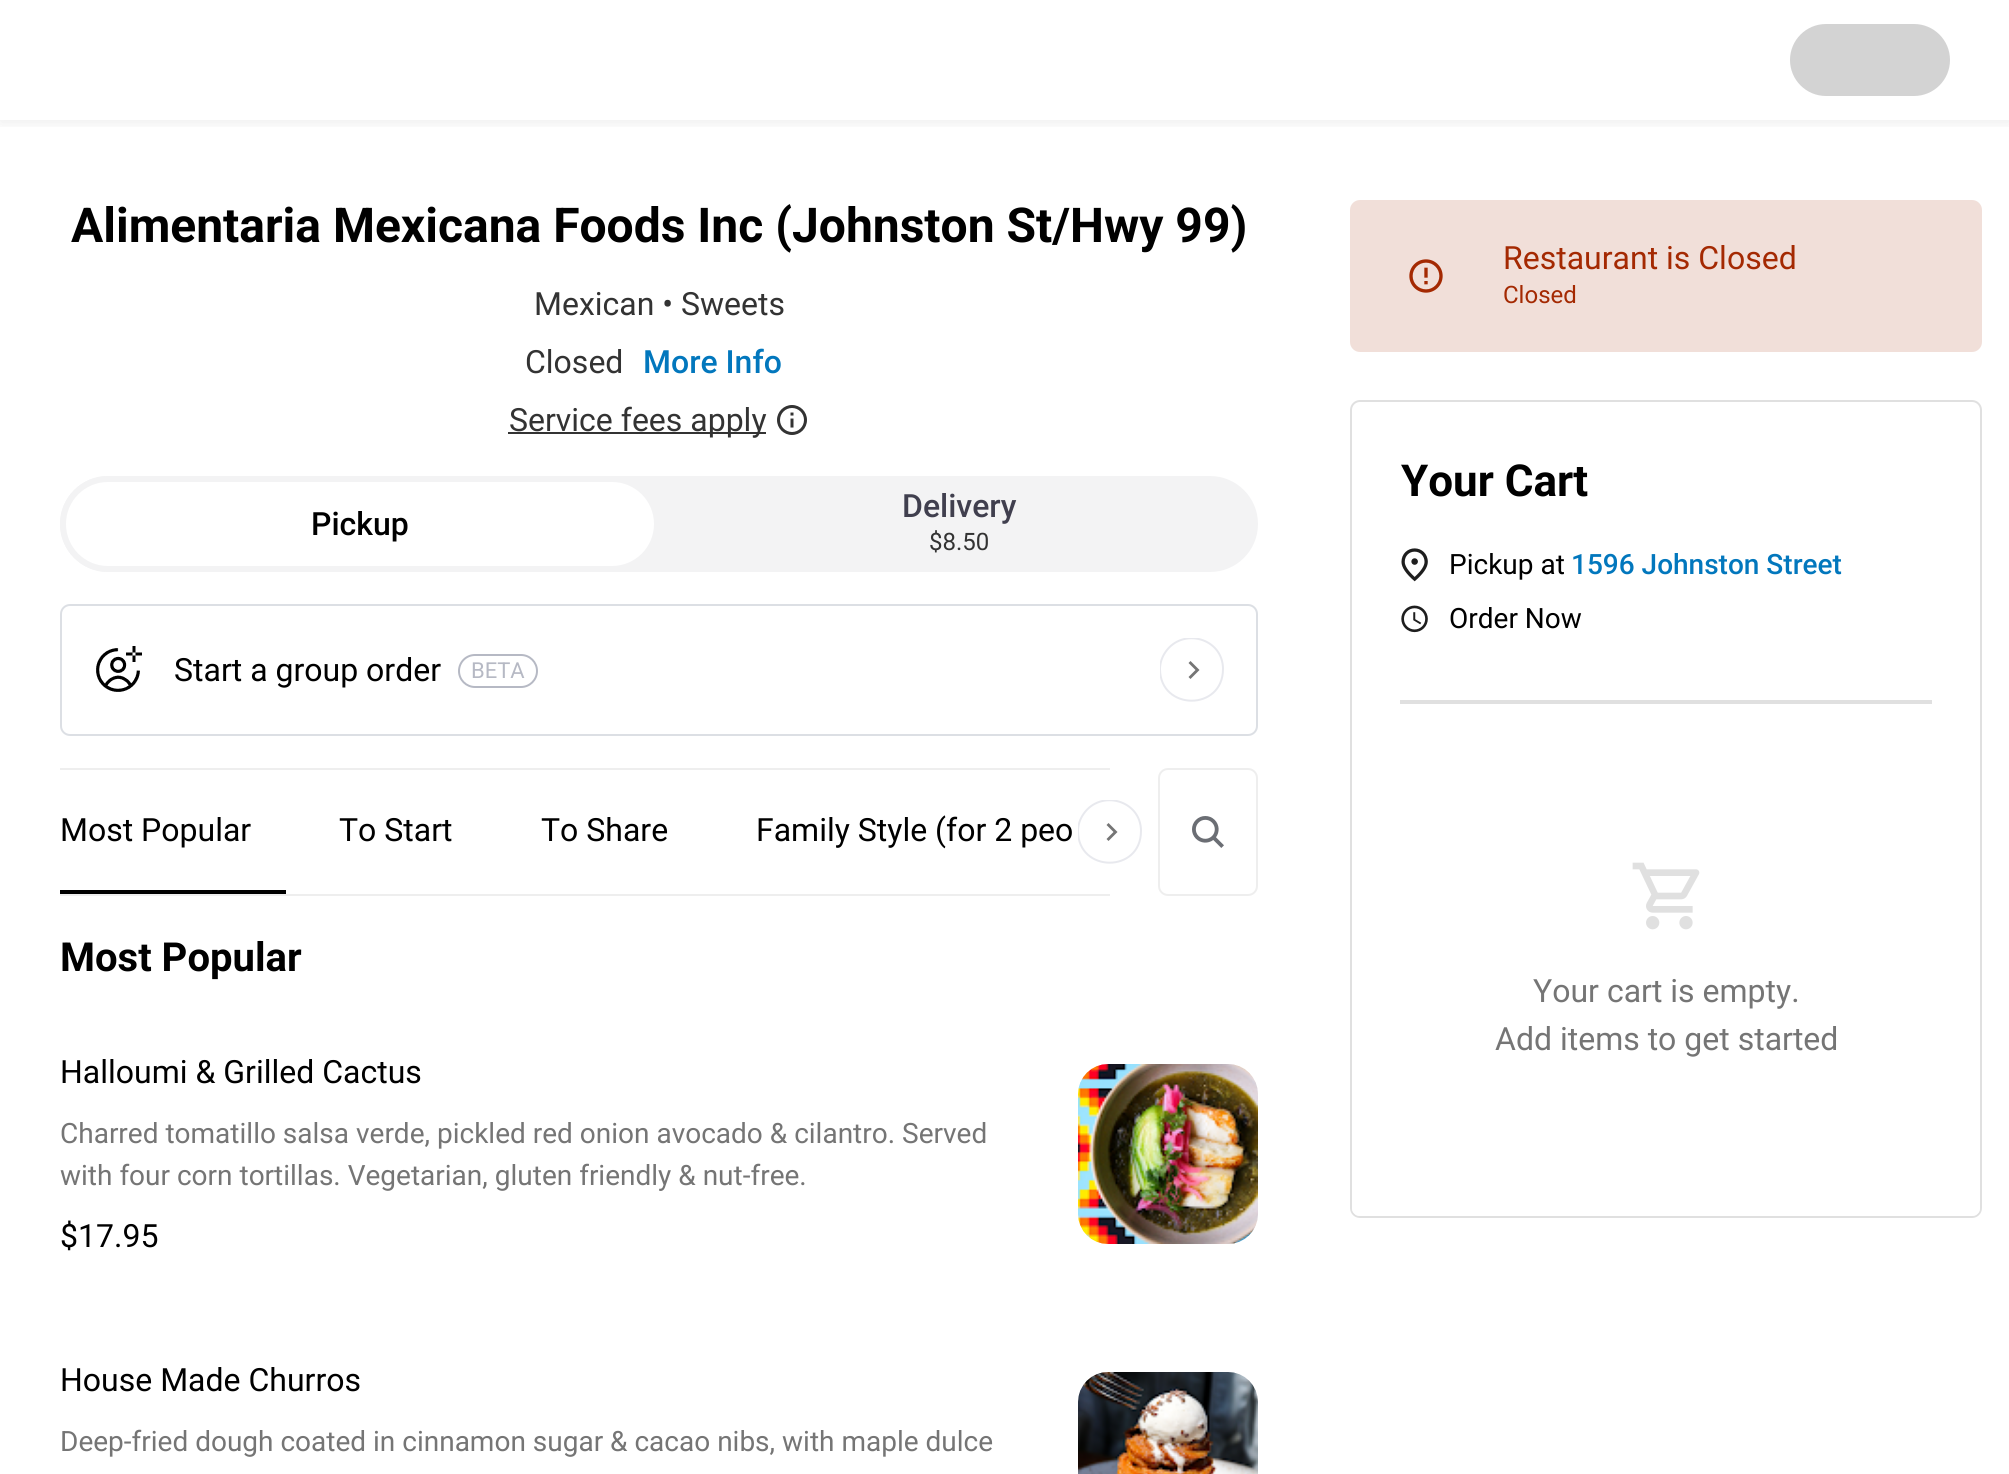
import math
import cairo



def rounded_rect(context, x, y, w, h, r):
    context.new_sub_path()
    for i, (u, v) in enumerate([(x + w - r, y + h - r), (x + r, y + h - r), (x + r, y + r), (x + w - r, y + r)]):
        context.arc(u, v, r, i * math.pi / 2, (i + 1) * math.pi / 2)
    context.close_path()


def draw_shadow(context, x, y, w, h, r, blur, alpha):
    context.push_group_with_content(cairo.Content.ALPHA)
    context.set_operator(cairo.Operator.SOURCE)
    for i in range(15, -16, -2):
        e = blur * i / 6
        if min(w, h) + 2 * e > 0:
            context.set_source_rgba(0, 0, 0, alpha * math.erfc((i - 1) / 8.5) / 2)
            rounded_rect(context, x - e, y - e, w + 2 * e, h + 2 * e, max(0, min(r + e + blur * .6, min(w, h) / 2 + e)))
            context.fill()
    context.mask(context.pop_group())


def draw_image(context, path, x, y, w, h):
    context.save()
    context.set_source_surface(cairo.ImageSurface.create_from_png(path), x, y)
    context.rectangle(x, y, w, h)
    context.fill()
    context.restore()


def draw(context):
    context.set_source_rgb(1, 1, 1)
    context.paint()
    context.save()
    context.rectangle(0, 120, 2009, 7)
    context.clip()
    context.set_source_rgb(0, 0, 0)
    draw_shadow(context, 0, 2, 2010, 120, 0, 8, 0.08)
    context.restore()
    context.set_source_rgb(211 / 255, 211 / 255, 211 / 255)
    rounded_rect(context, 1790, 24, 160, 72, 36)
    context.fill()
    context.set_source_rgb(51 / 255, 51 / 255, 51 / 255)
    context.rectangle(508, 432, 258, 2)
    context.fill()
    draw_image(context, "images/1.png", 777, 405, 30, 30)
    context.set_source_rgb(241 / 255, 223 / 255, 217 / 255)
    rounded_rect(context, 1350, 200, 632, 152, 10)
    context.fill()
    draw_image(context, "images/2.png", 1409, 259, 34, 34)
    context.set_source_rgb(243 / 255, 243 / 255, 244 / 255)
    rounded_rect(context, 60, 476, 1198, 96, 48)
    context.fill()
    context.set_source_rgb(1, 1, 1)
    rounded_rect(context, 63, 479, 594, 90, 45)
    context.fill_preserve()
    context.set_source_rgb(243 / 255, 243 / 255, 244 / 255)
    context.set_line_width(6)
    context.stroke()
    rounded_rect(context, 61, 605, 1196, 130, 9)
    context.set_source_rgb(220 / 255, 223 / 255, 228 / 255)
    context.set_line_width(2)
    context.stroke()
    draw_image(context, "images/3.png", 96, 646, 46, 46)
    rounded_rect(context, 459, 655, 78, 32, 16)
    context.set_source_rgb(182 / 255, 185 / 255, 196 / 255)
    context.stroke()
    context.save()
    context.rectangle(1160, 638, 64, 64)
    context.clip()
    context.new_path()
    context.move_to(1160, 669)
    context.curve_to(1160, 663, 1162, 657, 1165.5, 652)
    context.curve_to(1182.5, 627, 1223, 638, 1223, 669)
    context.curve_to(1223, 711.5, 1160, 711, 1160, 669)
    context.close_path()
    context.set_source_rgb(232 / 255, 233 / 255, 238 / 255)
    context.stroke()
    context.restore()
    context.set_source_rgb(117 / 255, 117 / 255, 117 / 255)
    context.new_path()
    context.move_to(1190.5, 661)
    context.line_to(1188.5, 663)
    context.line_to(1195.5, 670)
    context.line_to(1188.5, 677)
    context.line_to(1190.5, 679)
    context.line_to(1199.5, 670)
    context.close_path()
    context.fill()
    rounded_rect(context, 1351, 401, 630, 816, 9)
    context.set_source_rgb(224 / 255, 224 / 255, 224 / 255)
    context.stroke()
    draw_image(context, "images/4.png", 1401, 548, 27, 34)
    draw_image(context, "images/5.png", 1401, 605, 27, 28)
    context.set_source_rgb(1, 1, 1)
    context.new_path()
    context.move_to(1352, 684)
    context.line_to(1980, 684)
    context.line_to(1980, 1208)
    context.curve_to(1980, 1212.5, 1976.5, 1216, 1972, 1216)
    context.line_to(1360, 1216)
    context.curve_to(1355.5, 1216, 1352, 1212.5, 1352, 1208)
    context.close_path()
    context.fill()
    gradient = cairo.LinearGradient(1666, 1200, 1666, 1216)
    gradient.add_color_stop_rgba(0, 85 / 255, 85 / 255, 85 / 255, 0)
    gradient.add_color_stop_rgba(1, 85 / 255, 85 / 255, 85 / 255, 0.1)
    context.set_source(gradient)
    context.new_path()
    context.move_to(1352, 1200)
    context.line_to(1980, 1200)
    context.line_to(1980, 1208)
    context.curve_to(1980, 1212.5, 1976.5, 1216, 1972, 1216)
    context.line_to(1360, 1216)
    context.curve_to(1355.5, 1216, 1352, 1212.5, 1352, 1208)
    context.close_path()
    context.fill()
    gradient = cairo.LinearGradient(1666, 1136, 1666, 1216)
    gradient.add_color_stop_rgba(0, 1, 1, 1, 0)
    gradient.add_color_stop_rgba(0.7, 1, 1, 1, 1)
    context.set_source(gradient)
    context.new_path()
    context.move_to(1352, 1136)
    context.line_to(1980, 1136)
    context.line_to(1980, 1208)
    context.curve_to(1980, 1212.5, 1976.5, 1216, 1972, 1216)
    context.line_to(1360, 1216)
    context.curve_to(1355.5, 1216, 1352, 1212.5, 1352, 1208)
    context.close_path()
    context.fill()
    context.set_source_rgb(224 / 255, 224 / 255, 224 / 255)
    context.rectangle(1400, 700, 532, 4)
    context.fill()
    draw_image(context, "images/6.png", 1632, 862, 68, 68)
    context.set_source_rgb(238 / 255, 238 / 255, 238 / 255)
    context.rectangle(60, 768, 1050, 2)
    context.fill()
    context.rectangle(60, 894, 1050, 2)
    context.fill()
    context.set_source_rgb(0, 0, 0)
    context.rectangle(60, 890, 226, 4)
    context.fill()
    context.save()
    context.rectangle(1078, 800, 64, 64)
    context.clip()
    context.new_path()
    context.move_to(1078, 831)
    context.curve_to(1078, 825, 1080, 819, 1083.5, 814)
    context.curve_to(1100.5, 789, 1141, 800, 1141, 831)
    context.curve_to(1141, 873.5, 1078, 873, 1078, 831)
    context.close_path()
    context.set_source_rgb(232 / 255, 233 / 255, 238 / 255)
    context.stroke()
    context.restore()
    context.set_source_rgb(117 / 255, 117 / 255, 117 / 255)
    context.new_path()
    context.move_to(1108.5, 823)
    context.line_to(1106.5, 825)
    context.line_to(1113.5, 832)
    context.line_to(1106.5, 839)
    context.line_to(1108.5, 841)
    context.line_to(1117.5, 832)
    context.close_path()
    context.fill()
    rounded_rect(context, 1159, 769, 98, 126, 9)
    context.set_source_rgb(238 / 255, 238 / 255, 238 / 255)
    context.stroke()
    draw_image(context, "images/7.png", 1192, 816, 32, 32)
    draw_image(context, "images/8.png", 1078, 1064, 180, 180)
    draw_image(context, "images/9.png", 1078, 1372, 180, 102)
    context.select_font_face("Roboto", cairo.FontSlant.NORMAL, cairo.FontWeight.BOLD)
    context.set_font_size(48)
    context.set_source_rgb(0, 0, 0)
    context.move_to(71, 242)
    context.show_text("Alimentaria Mexicana Foods Inc (Johnston St/Hwy 99)")
    context.select_font_face("Roboto")
    context.set_font_size(32)
    context.set_source_rgb(51 / 255, 51 / 255, 51 / 255)
    context.move_to(534, 315)
    context.show_text("Mexican • Sweets")
    context.move_to(525, 373)
    context.show_text("Closed")
    context.select_font_face("Roboto Medium")
    context.set_source_rgb(2 / 255, 119 / 255, 189 / 255)
    context.move_to(643, 373)
    context.show_text("More Info")
    context.select_font_face("Roboto")
    context.set_source_rgb(51 / 255, 51 / 255, 51 / 255)
    context.move_to(509, 431)
    context.show_text("Service fees apply")
    context.set_source_rgb(164 / 255, 41 / 255, 2 / 255)
    context.move_to(1503, 269)
    context.show_text("Restaurant is Closed")
    context.set_font_size(24)
    context.move_to(1503, 303)
    context.show_text("Closed")
    context.select_font_face("Roboto Medium")
    context.set_font_size(32)
    context.set_source_rgb(64 / 255, 63 / 255, 78 / 255)
    context.move_to(902, 517)
    context.show_text("Delivery")
    context.select_font_face("Roboto")
    context.set_font_size(24)
    context.set_source_rgb(51 / 255, 51 / 255, 51 / 255)
    context.move_to(929, 550)
    context.show_text("$8.50")
    context.select_font_face("Roboto Medium")
    context.set_font_size(32)
    context.set_source_rgb(0, 0, 0)
    context.move_to(311, 535)
    context.show_text("Pickup")
    context.select_font_face("Roboto")
    context.move_to(174, 681)
    context.show_text("Start a group order")
    context.set_font_size(22)
    context.set_source_rgb(182 / 255, 185 / 255, 196 / 255)
    context.move_to(471, 678)
    context.show_text("BETA")
    context.select_font_face("Roboto", cairo.FontSlant.NORMAL, cairo.FontWeight.BOLD)
    context.set_font_size(44)
    context.set_source_rgb(0, 0, 0)
    context.move_to(1401, 496)
    context.show_text("Your Cart")
    context.select_font_face("Roboto")
    context.set_font_size(28)
    context.move_to(1449, 574)
    context.show_text("Pickup at")
    context.select_font_face("Roboto Medium")
    context.set_source_rgb(2 / 255, 119 / 255, 189 / 255)
    context.move_to(1571, 574)
    context.show_text("1596 Johnston Street")
    context.select_font_face("Roboto")
    context.set_source_rgb(0, 0, 0)
    context.move_to(1449, 628)
    context.show_text("Order Now")
    context.set_font_size(32)
    context.set_source_rgb(117 / 255, 117 / 255, 117 / 255)
    context.move_to(1533, 1002)
    context.show_text("Your cart is empty.")
    context.move_to(1495, 1050)
    context.show_text("Add items to get started")
    context.set_source_rgb(0, 0, 0)
    context.move_to(60, 841)
    context.show_text("Most Popular")
    context.move_to(339, 841)
    context.show_text("To Start")
    context.move_to(541, 841)
    context.show_text("To Share")
    context.move_to(756, 841)
    context.show_text("Family Style (for 2 peo")
    context.select_font_face("Roboto", cairo.FontSlant.NORMAL, cairo.FontWeight.BOLD)
    context.set_font_size(40)
    context.move_to(60, 971)
    context.show_text("Most Popular")
    context.select_font_face("Roboto")
    context.set_font_size(32)
    context.move_to(60, 1083)
    context.show_text("Halloumi & Grilled Cactus")
    context.set_font_size(28)
    context.set_source_rgb(117 / 255, 117 / 255, 117 / 255)
    context.move_to(60, 1143)
    context.show_text("Charred tomatillo salsa verde, pickled red onion avocado & cilantro. Served")
    context.move_to(60, 1185)
    context.show_text("with four corn tortillas. Vegetarian, gluten friendly & nut-free.")
    context.set_font_size(32)
    context.set_source_rgb(0, 0, 0)
    context.move_to(60, 1247)
    context.show_text("$17.95")
    context.move_to(60, 1391)
    context.show_text("House Made Churros")
    context.set_font_size(28)
    context.set_source_rgb(117 / 255, 117 / 255, 117 / 255)
    context.move_to(60, 1451)
    context.show_text("Deep-fried dough coated in cinnamon sugar & cacao nibs, with maple dulce")


surface = cairo.ImageSurface(cairo.Format.RGB24, 2009, 1474)
context = cairo.Context(surface)
options = cairo.FontOptions()
options.set_hint_metrics(cairo.HintMetrics.OFF)
options.set_hint_style(cairo.HintStyle.NONE)
context.set_font_options(options)
context.set_miter_limit(4)
draw(context)
surface.write_to_png("out.png")
